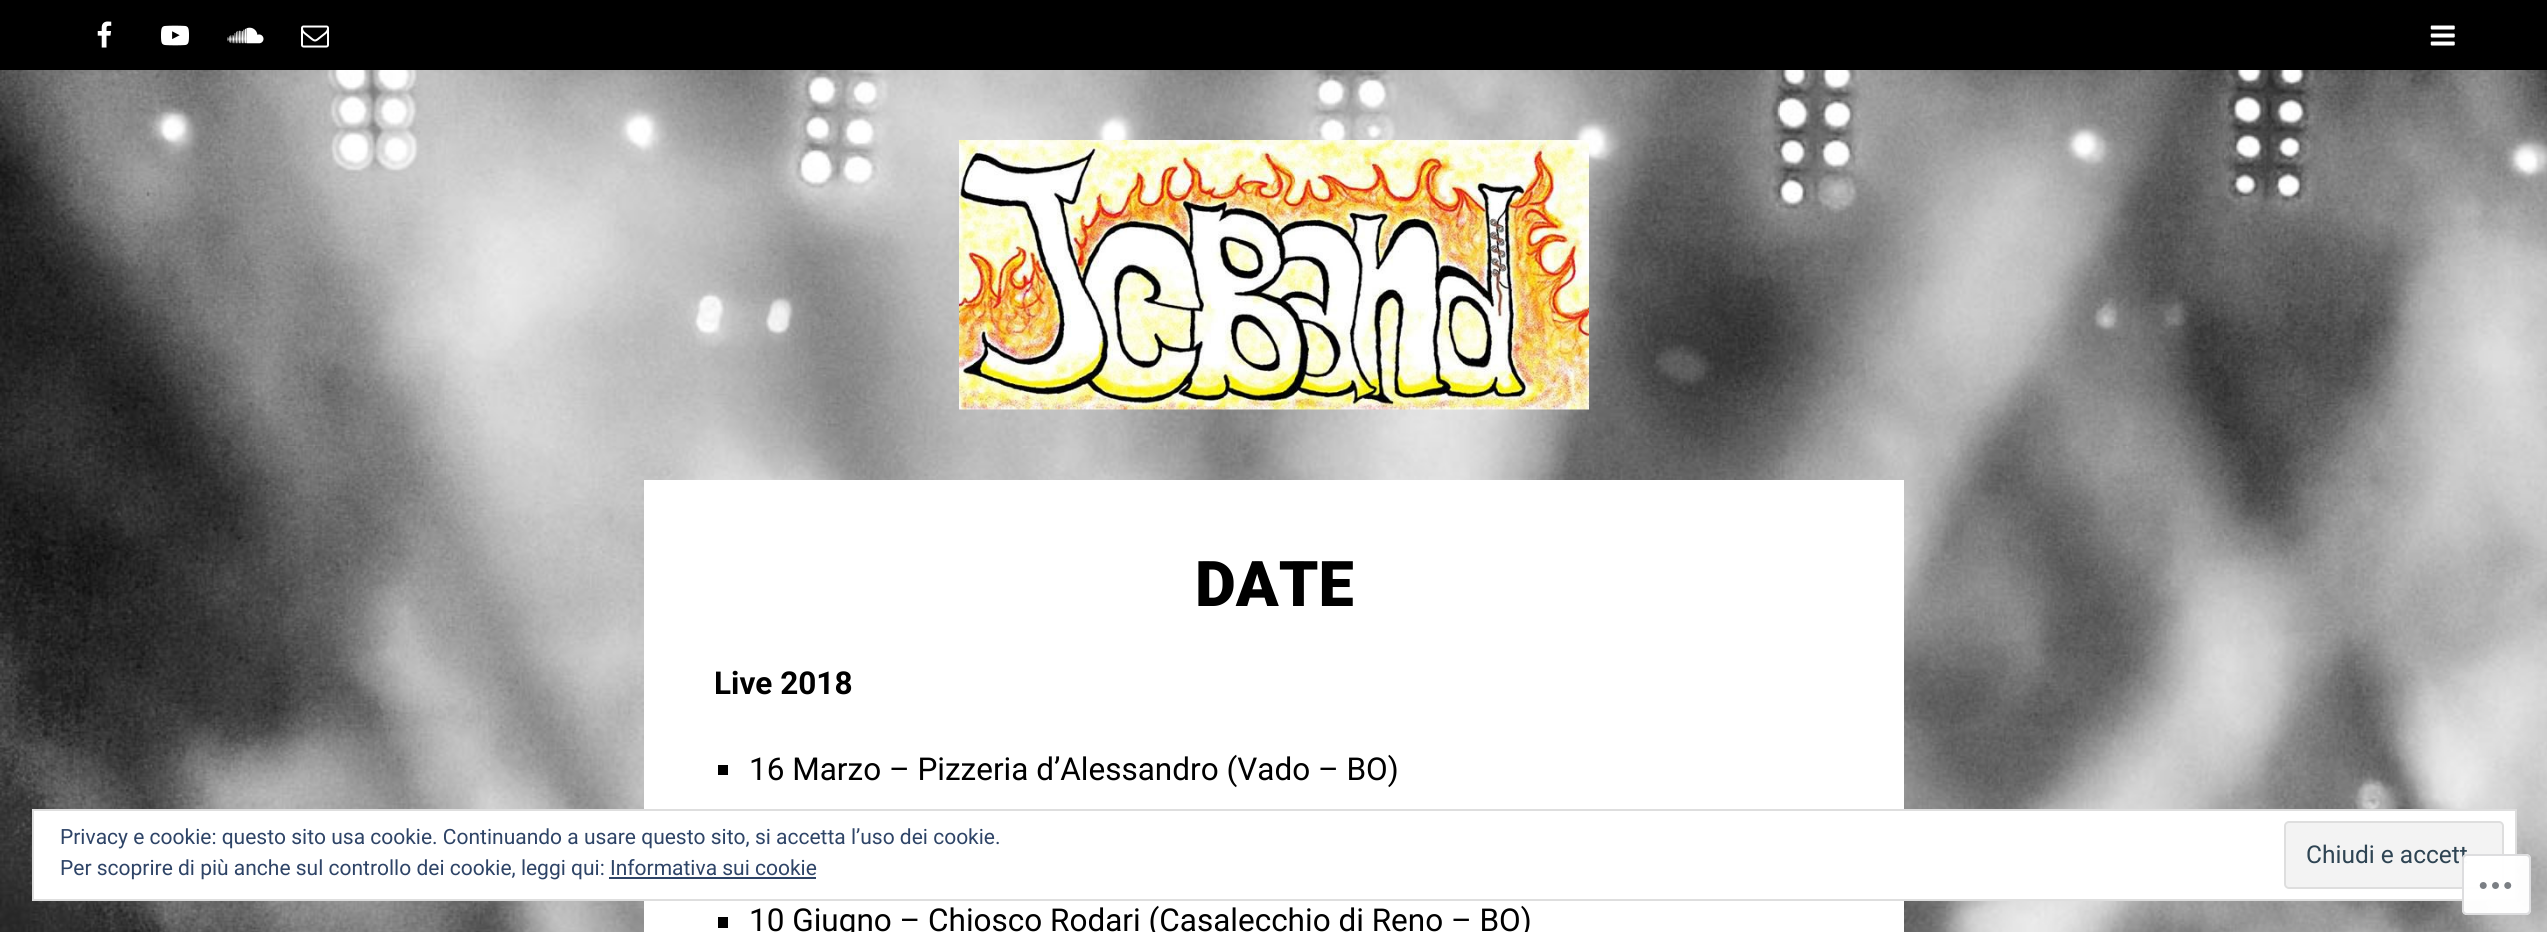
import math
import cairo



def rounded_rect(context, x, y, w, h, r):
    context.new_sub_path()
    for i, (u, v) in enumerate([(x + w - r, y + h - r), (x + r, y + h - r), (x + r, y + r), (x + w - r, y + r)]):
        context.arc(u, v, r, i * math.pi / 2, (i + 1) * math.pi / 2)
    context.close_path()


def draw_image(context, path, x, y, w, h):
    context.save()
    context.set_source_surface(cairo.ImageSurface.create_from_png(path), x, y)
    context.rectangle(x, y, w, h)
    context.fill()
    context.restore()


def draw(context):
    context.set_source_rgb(1, 1, 1)
    context.paint()
    draw_image(context, "images/1.png", 0, 70, 2547, 862)
    context.set_source_rgb(0, 0, 0)
    context.rectangle(0, 0, 2547, 70)
    context.fill()
    draw_image(context, "images/2.png", 97, 21, 15, 27)
    draw_image(context, "images/3.png", 161, 25, 28, 21)
    draw_image(context, "images/4.png", 227, 27, 37, 17)
    draw_image(context, "images/5.png", 301, 25, 28, 23)
    draw_image(context, "images/6.png", 2430, 25, 25, 21)
    draw_image(context, "images/7.png", 959, 140, 630, 270)
    context.set_source_rgb(1, 1, 1)
    context.rectangle(644, 480, 1260, 452)
    context.fill()
    context.set_source_rgb(0, 0, 0)
    context.rectangle(718, 765, 10, 10)
    context.fill()
    context.rectangle(718, 917, 10, 11)
    context.fill()
    context.set_source_rgb(1, 1, 1)
    context.rectangle(33, 810, 2483, 90)
    context.fill_preserve()
    context.set_source_rgb(222 / 255, 222 / 255, 222 / 255)
    context.stroke()
    context.set_source_rgb(243 / 255, 243 / 255, 243 / 255)
    rounded_rect(context, 2285, 822, 218, 66, 4)
    context.fill_preserve()
    context.set_source_rgb(222 / 255, 222 / 255, 222 / 255)
    context.stroke()
    context.set_source_rgb(46 / 255, 68 / 255, 103 / 255)
    context.rectangle(609, 877, 207, 2)
    context.fill()
    context.select_font_face("Roboto Black")
    context.set_font_size(63)
    context.set_source_rgb(0, 0, 0)
    context.move_to(1195, 606)
    context.show_text("DATE")
    context.select_font_face("Roboto", cairo.FontSlant.NORMAL, cairo.FontWeight.BOLD)
    context.set_font_size(31.5)
    context.move_to(714, 694)
    context.show_text("Live 2018")
    context.select_font_face("Roboto")
    context.move_to(749, 780)
    context.show_text("16 Marzo – Pizzeria d’Alessandro (Vado – BO)")
    context.move_to(749, 931)
    context.show_text("10 Giugno – Chiosco Rodari (Casalecchio di Reno – BO)")
    context.set_font_size(21)
    context.set_source_rgb(46 / 255, 68 / 255, 103 / 255)
    context.move_to(60, 844)
    context.show_text("Privacy e cookie: questo sito usa cookie. Continuando a usare questo sito, si accetta l’uso dei cookie.")
    context.set_font_size(24.5)
    context.set_source_rgb(46 / 255, 68 / 255, 83 / 255)
    context.move_to(2306, 863)
    context.show_text("Chiudi e accett")
    context.set_font_size(21)
    context.set_source_rgb(46 / 255, 68 / 255, 103 / 255)
    context.move_to(60, 875)
    context.show_text("Per scoprire di più anche sul controllo dei cookie, leggi qui: Informativa sui cookie")
    context.set_source_rgba(1, 1, 1, 0.98)
    rounded_rect(context, 2462, 854, 69, 61, 5)
    context.fill()
    rounded_rect(context, 2463, 855, 67, 59, 4)
    context.set_source_rgba(220 / 255, 220 / 255, 222 / 255, 0.98)
    context.stroke()
    draw_image(context, "images/8.png", 2479, 882, 33, 7)


surface = cairo.ImageSurface(cairo.Format.RGB24, 2547, 932)
context = cairo.Context(surface)
options = cairo.FontOptions()
options.set_hint_metrics(cairo.HintMetrics.OFF)
options.set_hint_style(cairo.HintStyle.NONE)
context.set_font_options(options)
context.set_miter_limit(4)
draw(context)
surface.write_to_png("out.png")
